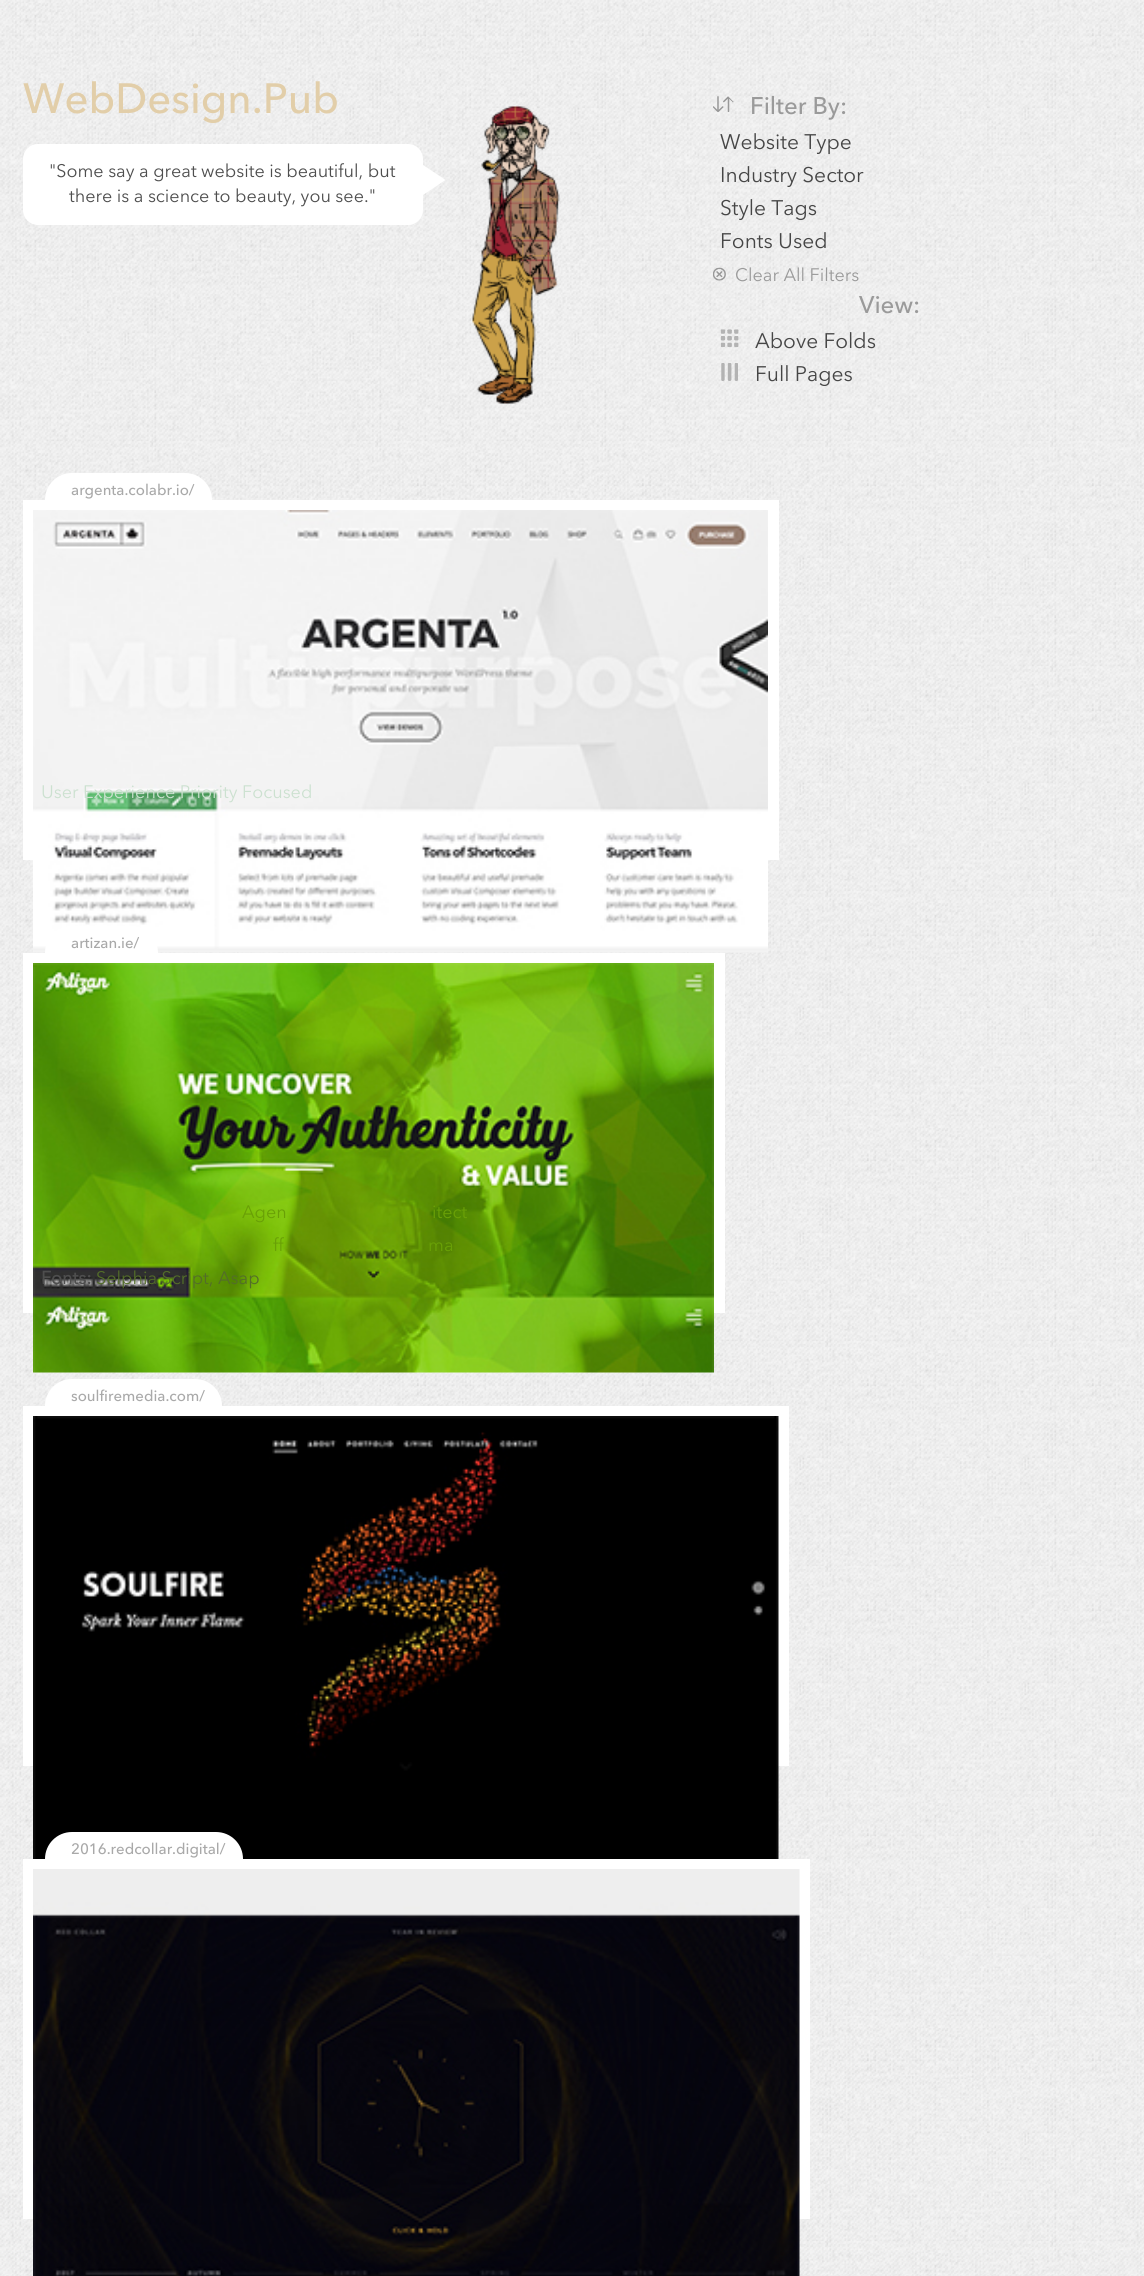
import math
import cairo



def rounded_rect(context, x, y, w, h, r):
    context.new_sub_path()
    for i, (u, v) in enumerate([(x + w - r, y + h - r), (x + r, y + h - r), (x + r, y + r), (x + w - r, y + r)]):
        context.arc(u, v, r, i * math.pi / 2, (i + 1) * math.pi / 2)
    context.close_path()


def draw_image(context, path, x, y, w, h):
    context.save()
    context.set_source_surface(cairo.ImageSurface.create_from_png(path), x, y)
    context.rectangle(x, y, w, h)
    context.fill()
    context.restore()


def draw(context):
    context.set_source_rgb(1, 1, 1)
    context.paint()
    draw_image(context, "images/1.png", 0, 0, 1144, 2276)
    context.set_source_rgb(1, 1, 1)
    rounded_rect(context, 23, 144, 400, 81, 15)
    context.fill()
    context.new_path()
    context.move_to(423, 195)
    context.line_to(423, 165)
    context.line_to(445.5, 180)
    context.close_path()
    context.fill()
    draw_image(context, "images/2.png", 472, 106, 88, 298)
    draw_image(context, "images/3.png", 713, 96, 21, 16)
    draw_image(context, "images/4.png", 713, 267, 13, 14)
    draw_image(context, "images/5.png", 720, 329, 19, 19)
    draw_image(context, "images/6.png", 721, 363, 17, 18)
    context.new_path()
    context.move_to(72, 473)
    context.line_to(185, 473)
    context.curve_to(200, 473, 212, 485, 212, 500)
    context.line_to(45, 500)
    context.curve_to(45, 485, 57, 473, 72, 473)
    context.close_path()
    context.fill()
    context.rectangle(23, 500, 756, 360)
    context.fill()
    draw_image(context, "images/7.png", 33, 510, 735, 443)
    context.new_path()
    context.move_to(72, 926)
    context.line_to(131, 926)
    context.curve_to(146, 926, 158, 938, 158, 953)
    context.line_to(45, 953)
    context.curve_to(45, 938, 57, 926, 72, 926)
    context.close_path()
    context.fill()
    context.rectangle(23, 953, 702, 360)
    context.fill()
    draw_image(context, "images/8.png", 33, 963, 681, 410)
    context.new_path()
    context.move_to(72, 1379)
    context.line_to(195, 1379)
    context.curve_to(210, 1379, 222, 1391, 222, 1406)
    context.line_to(45, 1406)
    context.curve_to(45, 1391, 57, 1379, 72, 1379)
    context.close_path()
    context.fill()
    context.rectangle(23, 1406, 766, 360)
    context.fill()
    draw_image(context, "images/9.png", 33, 1416, 746, 443)
    context.new_path()
    context.move_to(72, 1832)
    context.line_to(216, 1832)
    context.curve_to(231, 1832, 243, 1844, 243, 1859)
    context.line_to(45, 1859)
    context.curve_to(45, 1844, 57, 1832, 72, 1832)
    context.close_path()
    context.fill()
    context.rectangle(23, 1859, 787, 360)
    context.fill()
    draw_image(context, "images/10.png", 33, 1869, 767, 407)
    context.select_font_face("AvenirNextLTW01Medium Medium")
    context.set_font_size(42)
    context.set_source_rgb(226 / 255, 206 / 255, 169 / 255)
    context.move_to(23, 113)
    context.show_text("WebDesign.Pub")
    context.select_font_face("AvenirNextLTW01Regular")
    context.set_font_size(18)
    context.set_source_rgb(78 / 255, 78 / 255, 78 / 255)
    context.move_to(49, 177)
    context.show_text("\"Some say a great website is beautiful, but")
    context.move_to(69, 202)
    context.show_text("there is a science to beauty, you see.\"")
    context.select_font_face("AvenirNextLTW01Medium Medium")
    context.set_font_size(24)
    context.set_source_rgb(154 / 255, 154 / 255, 154 / 255)
    context.move_to(750, 114)
    context.show_text("Filter By:")
    context.select_font_face("AvenirNextLTW01Regular")
    context.set_font_size(21)
    context.set_source_rgb(70 / 255, 70 / 255, 70 / 255)
    context.move_to(720, 149)
    context.show_text("Website Type")
    context.move_to(720, 182)
    context.show_text("Industry Sector")
    context.move_to(720, 215)
    context.show_text("Style Tags")
    context.move_to(720, 248)
    context.show_text("Fonts Used")
    context.set_font_size(18)
    context.set_source_rgb(154 / 255, 154 / 255, 154 / 255)
    context.move_to(735, 281)
    context.show_text("Clear All Filters")
    context.select_font_face("AvenirNextLTW01Medium Medium")
    context.set_font_size(24)
    context.move_to(859, 313)
    context.show_text("View:")
    context.select_font_face("AvenirNextLTW01Regular")
    context.set_font_size(21)
    context.set_source_rgb(70 / 255, 70 / 255, 70 / 255)
    context.move_to(755, 348)
    context.show_text("Above Folds")
    context.move_to(755, 381)
    context.show_text("Full Pages")
    context.select_font_face("AvenirNextLTW01Medium Medium")
    context.set_font_size(15)
    context.set_source_rgb(169 / 255, 169 / 255, 169 / 255)
    context.move_to(71, 495)
    context.show_text("argenta.colabr.io/")
    context.select_font_face("AvenirNextLTW01Regular")
    context.set_font_size(18)
    context.set_source_rgb(204 / 255, 225 / 255, 208 / 255)
    context.move_to(41, 798)
    context.show_text("User Experience Priority Focused")
    context.select_font_face("AvenirNextLTW01Medium Medium")
    context.set_font_size(15)
    context.set_source_rgb(169 / 255, 169 / 255, 169 / 255)
    context.move_to(71, 948)
    context.show_text("artizan.ie/")
    context.select_font_face("AvenirNextLTW01Regular")
    context.set_font_size(18)
    context.set_source_rgb(105 / 255, 160 / 255, 6 / 255)
    context.move_to(242, 1218)
    context.show_text("Agen")
    context.move_to(432, 1218)
    context.show_text("itect")
    context.move_to(273, 1251)
    context.show_text("ff")
    context.move_to(428, 1251)
    context.show_text("ma")
    context.select_font_face("AvenirNextLTW01Regular", cairo.FontSlant.NORMAL, cairo.FontWeight.BOLD)
    context.set_source_rgb(78 / 255, 78 / 255, 78 / 255)
    context.move_to(41, 1284)
    context.show_text("Fonts:")
    context.select_font_face("AvenirNextLTW01Regular")
    context.set_source_rgb(83 / 255, 109 / 255, 41 / 255)
    context.move_to(96, 1284)
    context.show_text("Selphia Script, Asap")
    context.select_font_face("AvenirNextLTW01Medium Medium")
    context.set_font_size(15)
    context.set_source_rgb(169 / 255, 169 / 255, 169 / 255)
    context.move_to(71, 1401)
    context.show_text("soulfiremedia.com/")
    context.move_to(71, 1854)
    context.show_text("2016.redcollar.digital/")


surface = cairo.ImageSurface(cairo.Format.RGB24, 1144, 2276)
context = cairo.Context(surface)
options = cairo.FontOptions()
options.set_hint_metrics(cairo.HintMetrics.OFF)
options.set_hint_style(cairo.HintStyle.NONE)
context.set_font_options(options)
context.set_miter_limit(4)
draw(context)
surface.write_to_png("out.png")
